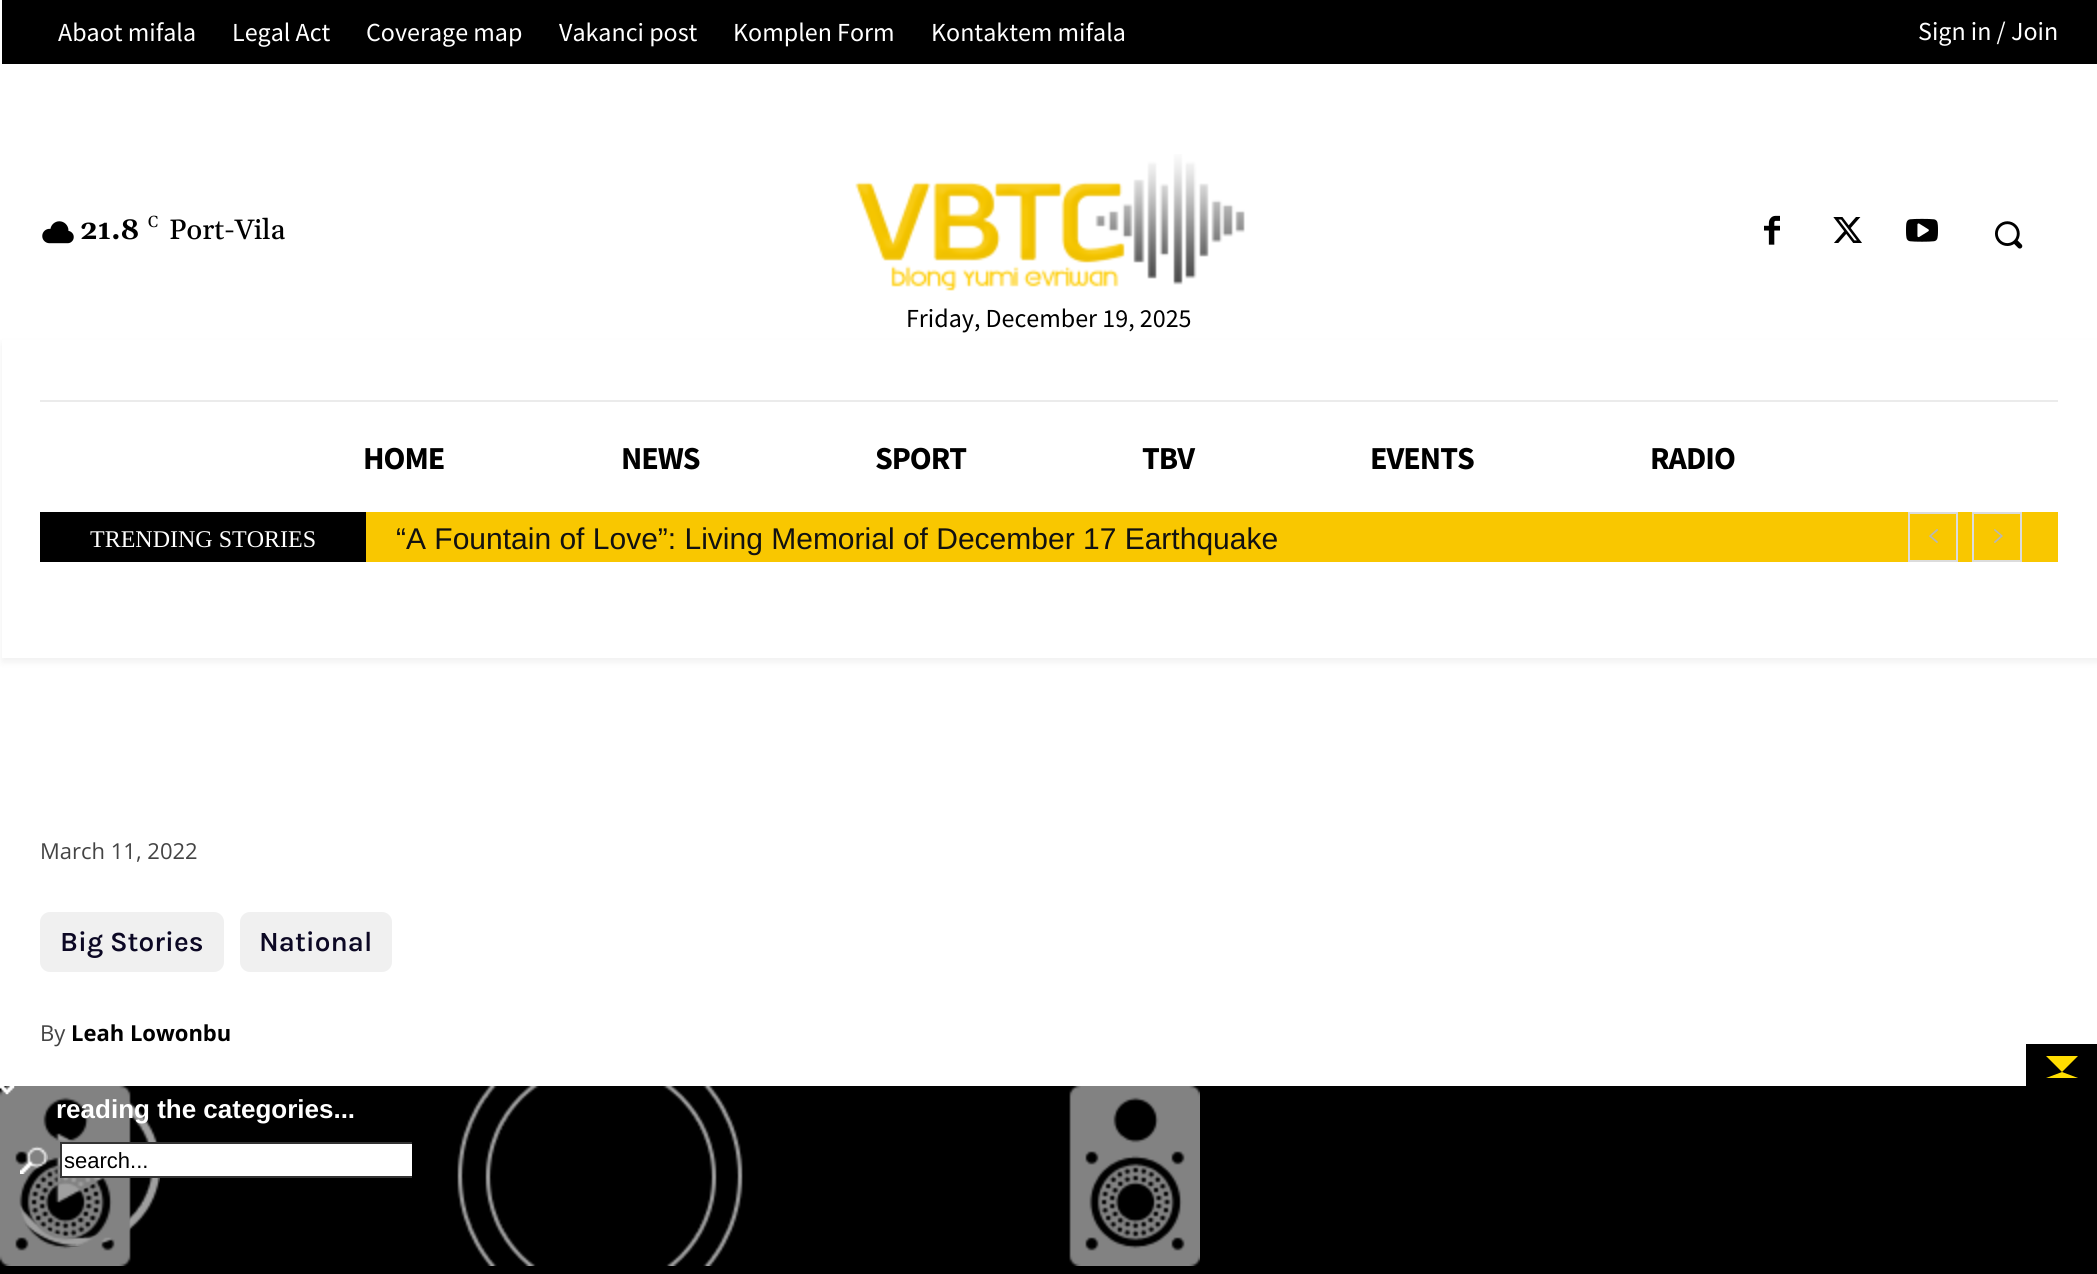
import math
import cairo



def draw_spaced(context, x, y, s, letter, word):
    context.move_to(x, y)
    for ch in s:
        context.show_text(ch)
        context.rel_move_to(letter + word * (ch == ' '), 0)


def rounded_rect(context, x, y, w, h, r):
    context.new_sub_path()
    for i, (u, v) in enumerate([(x + w - r, y + h - r), (x + r, y + h - r), (x + r, y + r), (x + w - r, y + r)]):
        context.arc(u, v, r, i * math.pi / 2, (i + 1) * math.pi / 2)
    context.close_path()


def draw_shadow(context, x, y, w, h, r, blur, alpha):
    context.push_group_with_content(cairo.Content.ALPHA)
    context.set_operator(cairo.Operator.SOURCE)
    for i in range(15, -16, -2):
        e = blur * i / 6
        if min(w, h) + 2 * e > 0:
            context.set_source_rgba(0, 0, 0, alpha * math.erfc((i - 1) / 8.5) / 2)
            rounded_rect(context, x - e, y - e, w + 2 * e, h + 2 * e, max(0, min(r + e + blur * .6, min(w, h) / 2 + e)))
            context.fill()
    context.mask(context.pop_group())


def draw_image(context, path, x, y, w, h):
    context.save()
    context.set_source_surface(cairo.ImageSurface.create_from_png(path), x, y)
    context.rectangle(x, y, w, h)
    context.fill()
    context.restore()


def draw(context):
    context.set_source_rgb(1, 1, 1)
    context.paint()
    context.set_source_rgb(0, 0, 0)
    context.rectangle(2, 0, 2095, 64)
    context.fill()
    draw_image(context, "images/1.png", 42, 221, 32, 23)
    draw_image(context, "images/2.png", 1764, 215, 16, 30)
    draw_image(context, "images/3.png", 1833, 217, 29, 26)
    draw_image(context, "images/4.png", 1906, 218, 32, 24)
    draw_image(context, "images/5.png", 1995, 221, 28, 28)
    draw_image(context, "images/6.png", 855, 154, 390, 137)
    context.set_source_rgb(235 / 255, 235 / 255, 235 / 255)
    context.rectangle(40, 400, 2018, 2)
    context.fill()
    context.set_source_rgb(249 / 255, 199 / 255, 0)
    context.rectangle(366, 512, 1692, 50)
    context.fill()
    context.set_source_rgb(0, 0, 0)
    context.rectangle(40, 512, 326, 50)
    context.fill()
    context.rectangle(1909, 513, 48, 48)
    context.set_source_rgb(220 / 255, 220 / 255, 220 / 255)
    context.stroke()
    draw_image(context, "images/7.png", 1929, 529, 9, 14)
    context.rectangle(1973, 513, 48, 48)
    context.stroke()
    draw_image(context, "images/8.png", 1994, 529, 9, 14)
    context.save()
    context.set_fill_rule(cairo.FillRule.EVEN_ODD)
    context.new_path()
    context.move_to(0, 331)
    context.line_to(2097, 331)
    context.line_to(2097, 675)
    context.line_to(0, 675)
    context.close_path()
    context.move_to(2, 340)
    context.line_to(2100, 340)
    context.line_to(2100, 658)
    context.line_to(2, 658)
    context.close_path()
    context.clip()
    context.set_source_rgb(0, 0, 0)
    draw_shadow(context, 2, 344, 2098, 318, 0, 4, 0.06)
    context.restore()
    context.set_source_rgb(240 / 255, 240 / 255, 240 / 255)
    rounded_rect(context, 40, 912, 184, 60, 10)
    context.fill()
    rounded_rect(context, 240, 912, 152, 60, 10)
    context.fill()
    context.set_source_rgb(0, 0, 0)
    context.rectangle(2026, 1044, 71, 42)
    context.fill()
    context.set_source_rgb(1, 221 / 255, 0)
    context.new_path()
    context.move_to(2046, 1056)
    context.line_to(2078, 1056)
    context.line_to(2062, 1072)
    context.close_path()
    context.move_to(2078, 1078)
    context.line_to(2046, 1078)
    context.line_to(2062, 1072)
    context.close_path()
    context.fill()
    context.set_source_rgb(0, 0, 0)
    context.rectangle(0, 1086, 2097, 188)
    context.fill()
    draw_image(context, "images/9.png", 3, 1086, 2, 3)
    draw_image(context, "images/10.png", 3, 1086, 2, 6)
    draw_image(context, "images/11.png", 3, 1086, 2, 6)
    draw_image(context, "images/12.png", 3, 1086, 8, 6)
    draw_image(context, "images/13.png", 19, 1097, 141, 149)
    gradient = cairo.LinearGradient(0, 1176, 940, 1176)
    gradient.add_color_stop_rgba(0, 0, 0, 0, 1)
    gradient.add_color_stop_rgba(0.51, 0, 0, 0, 0)
    gradient.add_color_stop_rgba(1, 0, 0, 0, 1)
    context.set_source(gradient)
    context.rectangle(3, 1086, 8, 6)
    context.fill()
    draw_image(context, "images/14.png", 0, 1086, 1200, 180)
    draw_image(context, "images/15.png", 0, 1086, 15, 9)
    draw_image(context, "images/16.png", 0, 1086, 14, 8)
    draw_image(context, "images/17.png", 20, 1146, 28, 28)
    context.set_source_rgb(1, 1, 1)
    context.rectangle(62, 1144, 350, 32)
    context.fill()
    context.save()
    context.rectangle(0, 1086, 412, 188)
    context.clip()
    context.rectangle(61, 1143, 418, 34)
    context.set_source_rgb(51 / 255, 51 / 255, 51 / 255)
    context.stroke()
    context.restore()
    context.select_font_face("Source Sans Pro")
    context.set_font_size(26)
    context.move_to(58, 41)
    context.show_text("Abaot mifala")
    context.move_to(232, 41)
    context.show_text("Legal Act")
    context.move_to(366, 41)
    context.show_text("Coverage map")
    context.move_to(559, 41)
    context.show_text("Vakanci post")
    context.move_to(733, 41)
    context.show_text("Komplen Form")
    context.move_to(931, 41)
    context.show_text("Kontaktem mifala")
    context.move_to(1918, 40)
    context.show_text("Sign in / Join")
    context.select_font_face("Gelasio", cairo.FontSlant.NORMAL, cairo.FontWeight.BOLD)
    context.set_font_size(28)
    context.set_source_rgb(0, 0, 0)
    context.move_to(80, 239)
    context.show_text("21.8")
    context.select_font_face("Gelasio")
    context.set_font_size(16)
    context.move_to(148, 227)
    context.show_text("C")
    context.select_font_face("Gelasio Medium")
    context.set_font_size(28)
    context.move_to(169, 239)
    context.show_text("Port-Vila")
    context.select_font_face("Source Sans Pro")
    context.set_font_size(26)
    context.move_to(906, 327)
    context.show_text("Friday, December 19, 2025")
    context.select_font_face("Source Sans Pro", cairo.FontSlant.NORMAL, cairo.FontWeight.BOLD)
    context.set_font_size(32)
    draw_spaced(context, 363, 469, "HOME", -1, 0)
    draw_spaced(context, 621, 469, "NEWS", -1, 0)
    draw_spaced(context, 875, 469, "SPORT", -1, 0)
    draw_spaced(context, 1142, 469, "TBV", -1, 0)
    draw_spaced(context, 1370, 469, "EVENTS", -1, 0)
    draw_spaced(context, 1650, 469, "RADIO", -1, 0)
    context.select_font_face("Liberation Serif")
    context.set_font_size(24)
    context.set_source_rgb(1, 1, 1)
    context.move_to(90, 547)
    context.show_text("TRENDING STORIES")
    context.select_font_face("Liberation Sans")
    context.set_font_size(30)
    context.set_source_rgb(17 / 255, 17 / 255, 17 / 255)
    context.move_to(396, 549)
    context.show_text("“A Fountain of Love”: Living Memorial of December 17 Earthquake")
    context.select_font_face("Open Sans")
    context.set_font_size(22)
    context.set_source_rgb(68 / 255, 68 / 255, 68 / 255)
    context.move_to(40, 859)
    context.show_text("March 11, 2022")
    context.select_font_face("Karla SemiBold")
    context.set_font_size(28)
    context.set_source_rgb(12 / 255, 8 / 255, 36 / 255)
    context.move_to(60, 951)
    context.show_text("Big Stories")
    context.move_to(259, 951)
    context.show_text("National")
    context.select_font_face("Open Sans")
    context.set_font_size(22)
    context.set_source_rgb(68 / 255, 68 / 255, 68 / 255)
    context.move_to(40, 1041)
    context.show_text("By")
    context.select_font_face("Open Sans", cairo.FontSlant.NORMAL, cairo.FontWeight.BOLD)
    context.set_source_rgb(0, 0, 0)
    context.move_to(71, 1041)
    context.show_text("Leah Lowonbu")
    context.select_font_face("Liberation Sans", cairo.FontSlant.NORMAL, cairo.FontWeight.BOLD)
    context.set_font_size(26)
    context.set_source_rgb(1, 1, 1)
    context.move_to(56, 1118)
    context.show_text("reading the categories...")
    context.select_font_face("Liberation Sans")
    context.set_font_size(22)
    context.set_source_rgb(0, 0, 0)
    context.move_to(64, 1168)
    context.show_text("search...")


surface = cairo.ImageSurface(cairo.Format.RGB24, 2097, 1274)
context = cairo.Context(surface)
options = cairo.FontOptions()
options.set_hint_metrics(cairo.HintMetrics.OFF)
options.set_hint_style(cairo.HintStyle.NONE)
context.set_font_options(options)
context.set_miter_limit(4)
draw(context)
surface.write_to_png("out.png")
